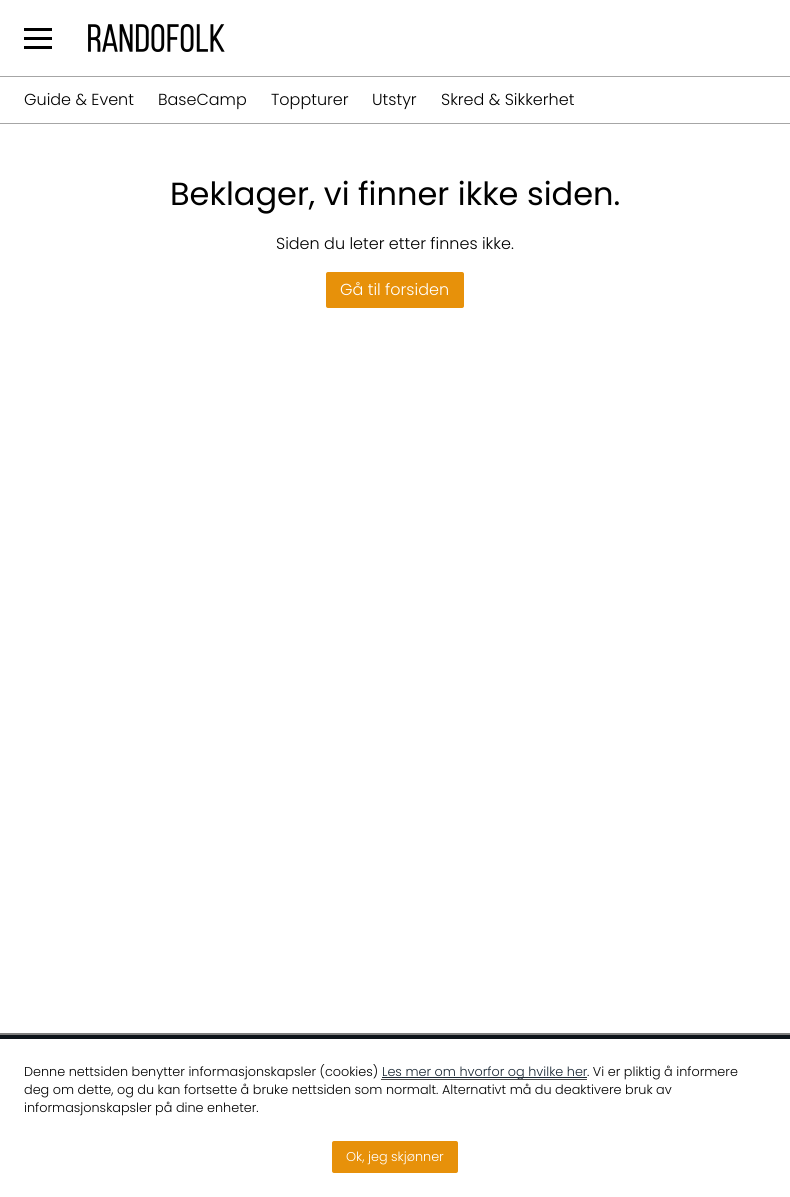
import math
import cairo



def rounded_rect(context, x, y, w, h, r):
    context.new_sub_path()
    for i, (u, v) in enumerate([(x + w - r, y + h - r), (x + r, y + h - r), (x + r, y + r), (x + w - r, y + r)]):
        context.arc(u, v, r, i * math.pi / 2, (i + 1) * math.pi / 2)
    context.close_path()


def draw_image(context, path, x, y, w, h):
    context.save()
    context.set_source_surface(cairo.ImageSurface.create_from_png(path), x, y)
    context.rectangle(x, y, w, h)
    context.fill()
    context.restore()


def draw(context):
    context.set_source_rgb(1, 1, 1)
    context.paint()
    context.set_source_rgb(0, 0, 0)
    context.rectangle(24, 28, 28, 3)
    context.fill()
    context.rectangle(24, 37, 28, 3)
    context.fill()
    context.rectangle(24, 46, 28, 3)
    context.fill()
    draw_image(context, "images/1.png", 88, 24, 137, 28)
    context.set_source_rgb(166 / 255, 166 / 255, 166 / 255)
    context.rectangle(0, 76, 790, 1)
    context.fill()
    context.rectangle(0, 123, 790, 1)
    context.fill()
    context.set_source_rgb(231 / 255, 145 / 255, 10 / 255)
    rounded_rect(context, 326, 272, 138, 36, 2)
    context.fill()
    context.set_source_rgb(27 / 255, 40 / 255, 52 / 255)
    context.rectangle(0, 1035, 790, 4)
    context.fill()
    context.rectangle(-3, 1036, 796, 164)
    context.set_source_rgba(0, 0, 0, 0.5)
    context.set_line_width(6)
    context.stroke()
    context.set_source_rgb(27 / 255, 40 / 255, 52 / 255)
    context.rectangle(382, 1077, 205, 1)
    context.fill()
    context.set_source_rgb(231 / 255, 145 / 255, 10 / 255)
    rounded_rect(context, 332, 1141, 126, 32, 2)
    context.fill()
    context.select_font_face("Poppins Light")
    context.set_font_size(16)
    context.set_source_rgb(0, 0, 0)
    context.move_to(24, 105)
    context.show_text("Guide & Event")
    context.move_to(158, 105)
    context.show_text("BaseCamp")
    context.move_to(271, 105)
    context.show_text("Toppturer")
    context.move_to(372, 105)
    context.show_text("Utstyr")
    context.move_to(441, 105)
    context.show_text("Skred & Sikkerhet")
    context.select_font_face("Poppins")
    context.set_font_size(32)
    context.move_to(170, 205)
    context.show_text("Beklager, vi finner ikke siden.")
    context.select_font_face("Poppins Light")
    context.set_font_size(16)
    context.move_to(276, 249)
    context.show_text("Siden du leter etter finnes ikke.")
    context.set_source_rgb(1, 1, 1)
    context.move_to(340, 295)
    context.show_text("Gå til forsiden")
    context.set_font_size(12.8)
    context.set_source_rgb(0, 0, 0)
    context.move_to(24, 1076)
    context.show_text("Denne nettsiden benytter informasjonskapsler (cookies)")
    context.set_source_rgb(27 / 255, 40 / 255, 52 / 255)
    context.move_to(382, 1076)
    context.show_text("Les mer om hvorfor og hvilke her")
    context.set_source_rgb(75 / 255, 75 / 255, 75 / 255)
    context.rectangle(381, 1079, 206, 1)
    context.fill()
    context.set_source_rgb(0, 0, 0)
    context.move_to(587, 1076)
    context.show_text(". Vi er pliktig å informere")
    context.move_to(24, 1094)
    context.show_text("deg om dette, og du kan fortsette å bruke nettsiden som normalt. Alternativt må du deaktivere bruk av")
    context.move_to(24, 1112)
    context.show_text("informasjonskapsler på dine enheter.")
    context.set_source_rgb(1, 1, 1)
    context.move_to(346, 1161)
    context.show_text("Ok, jeg skjønner")


surface = cairo.ImageSurface(cairo.Format.RGB24, 790, 1197)
context = cairo.Context(surface)
options = cairo.FontOptions()
options.set_hint_metrics(cairo.HintMetrics.OFF)
options.set_hint_style(cairo.HintStyle.NONE)
context.set_font_options(options)
context.set_miter_limit(4)
draw(context)
surface.write_to_png("out.png")
